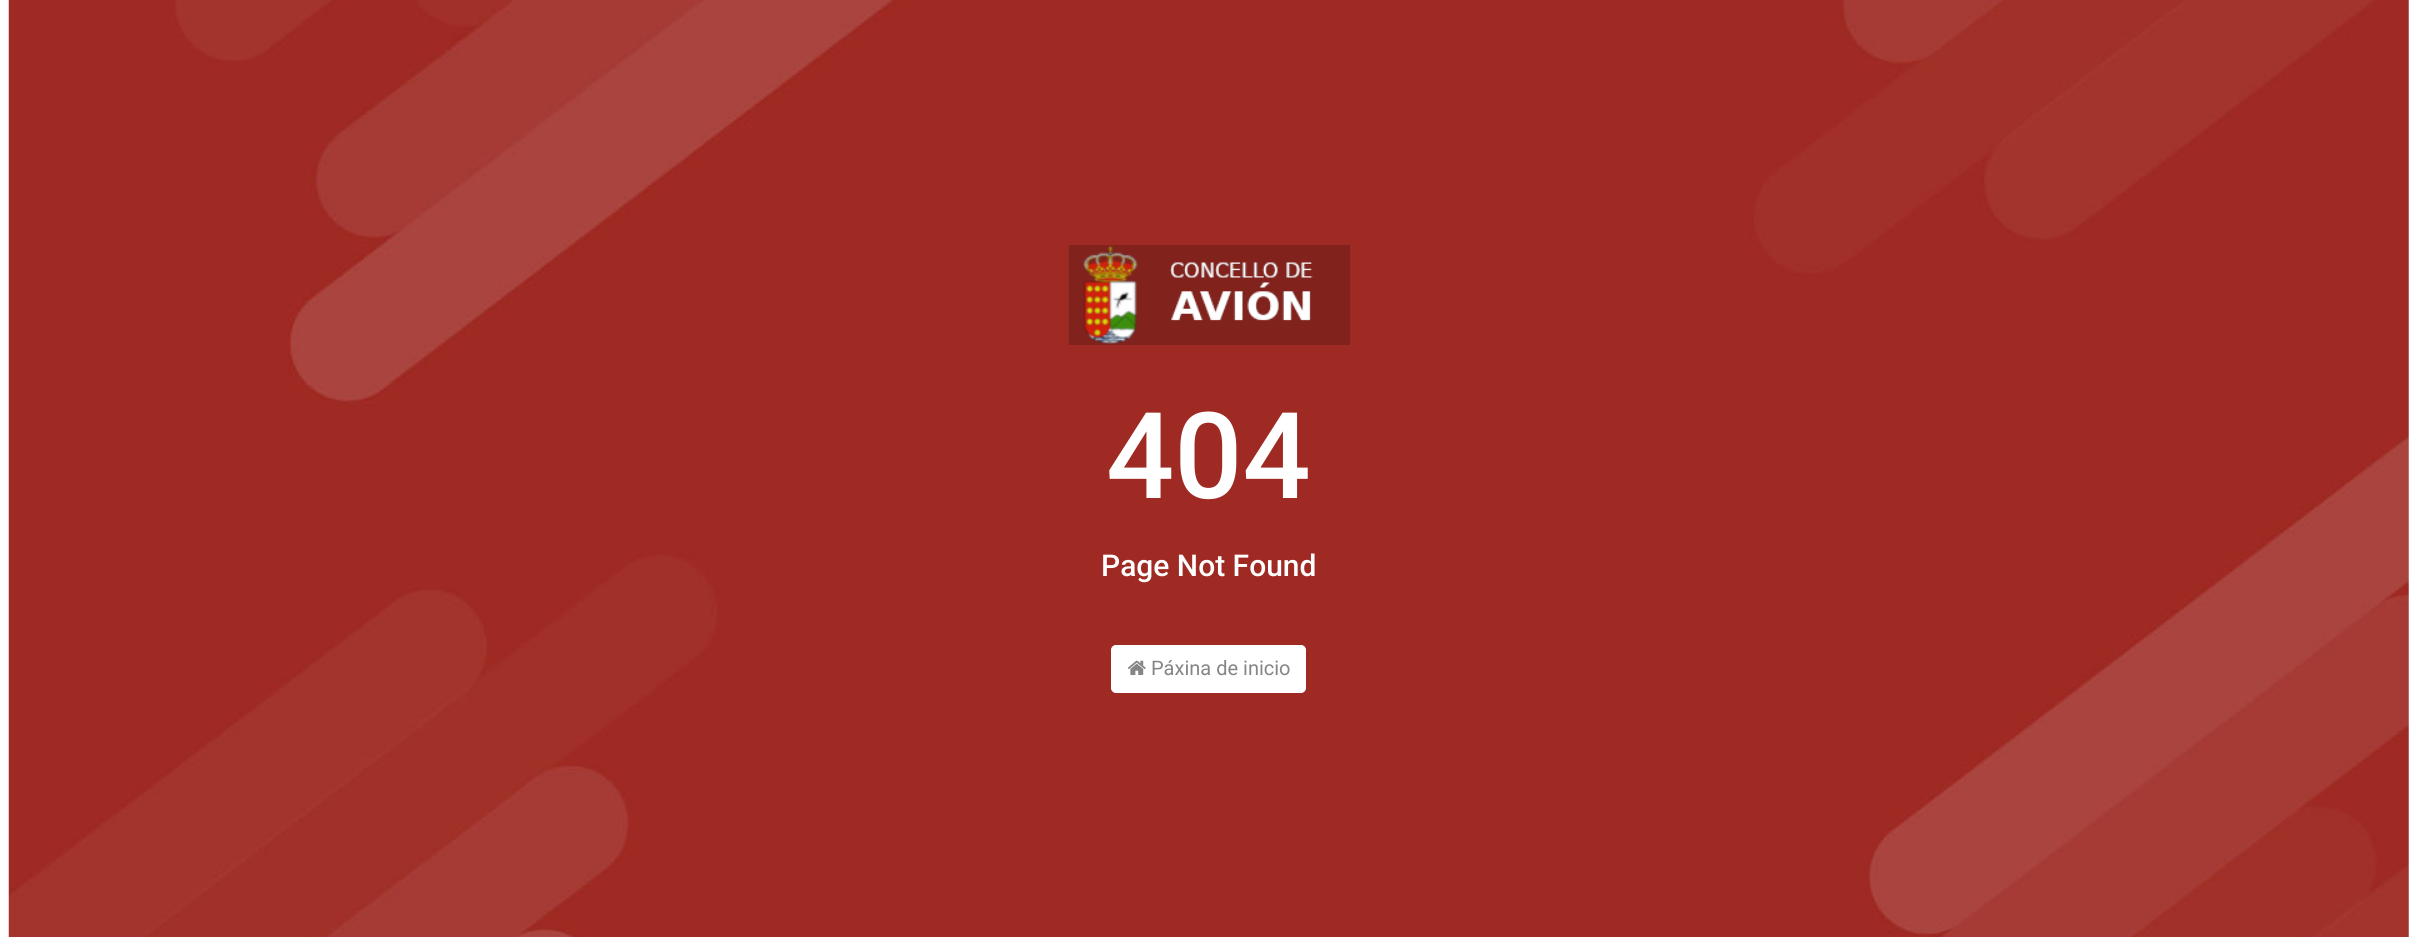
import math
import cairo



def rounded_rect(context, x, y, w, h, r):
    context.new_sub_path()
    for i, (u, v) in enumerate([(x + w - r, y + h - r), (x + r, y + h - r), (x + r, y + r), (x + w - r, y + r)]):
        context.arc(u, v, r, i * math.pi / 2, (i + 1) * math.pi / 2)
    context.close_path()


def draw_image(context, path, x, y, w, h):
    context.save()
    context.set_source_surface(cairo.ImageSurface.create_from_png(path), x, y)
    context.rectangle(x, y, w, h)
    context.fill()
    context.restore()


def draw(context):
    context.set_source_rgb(1, 1, 1)
    context.paint()
    draw_image(context, "images/1.png", 8, 0, 2401, 937)
    draw_image(context, "images/2.png", 1068, 245, 282, 100)
    context.set_source_rgb(1, 1, 1)
    rounded_rect(context, 1111.5, 645.5, 194, 47, 4.5)
    context.fill_preserve()
    context.set_line_width(1)
    context.stroke()
    draw_image(context, "images/3.png", 1127, 660, 19, 15)
    context.select_font_face("Roboto Medium")
    context.set_font_size(120)
    context.move_to(1106, 498)
    context.show_text("404")
    context.set_font_size(30)
    context.move_to(1101, 576)
    context.show_text("Page Not Found")
    context.select_font_face("Roboto")
    context.set_font_size(20)
    context.set_source_rgb(133 / 255, 133 / 255, 133 / 255)
    context.move_to(1151, 675)
    context.show_text("Páxina de inicio")


surface = cairo.ImageSurface(cairo.Format.RGB24, 2417, 937)
context = cairo.Context(surface)
options = cairo.FontOptions()
options.set_hint_metrics(cairo.HintMetrics.OFF)
options.set_hint_style(cairo.HintStyle.NONE)
context.set_font_options(options)
context.set_miter_limit(4)
draw(context)
surface.write_to_png("out.png")
